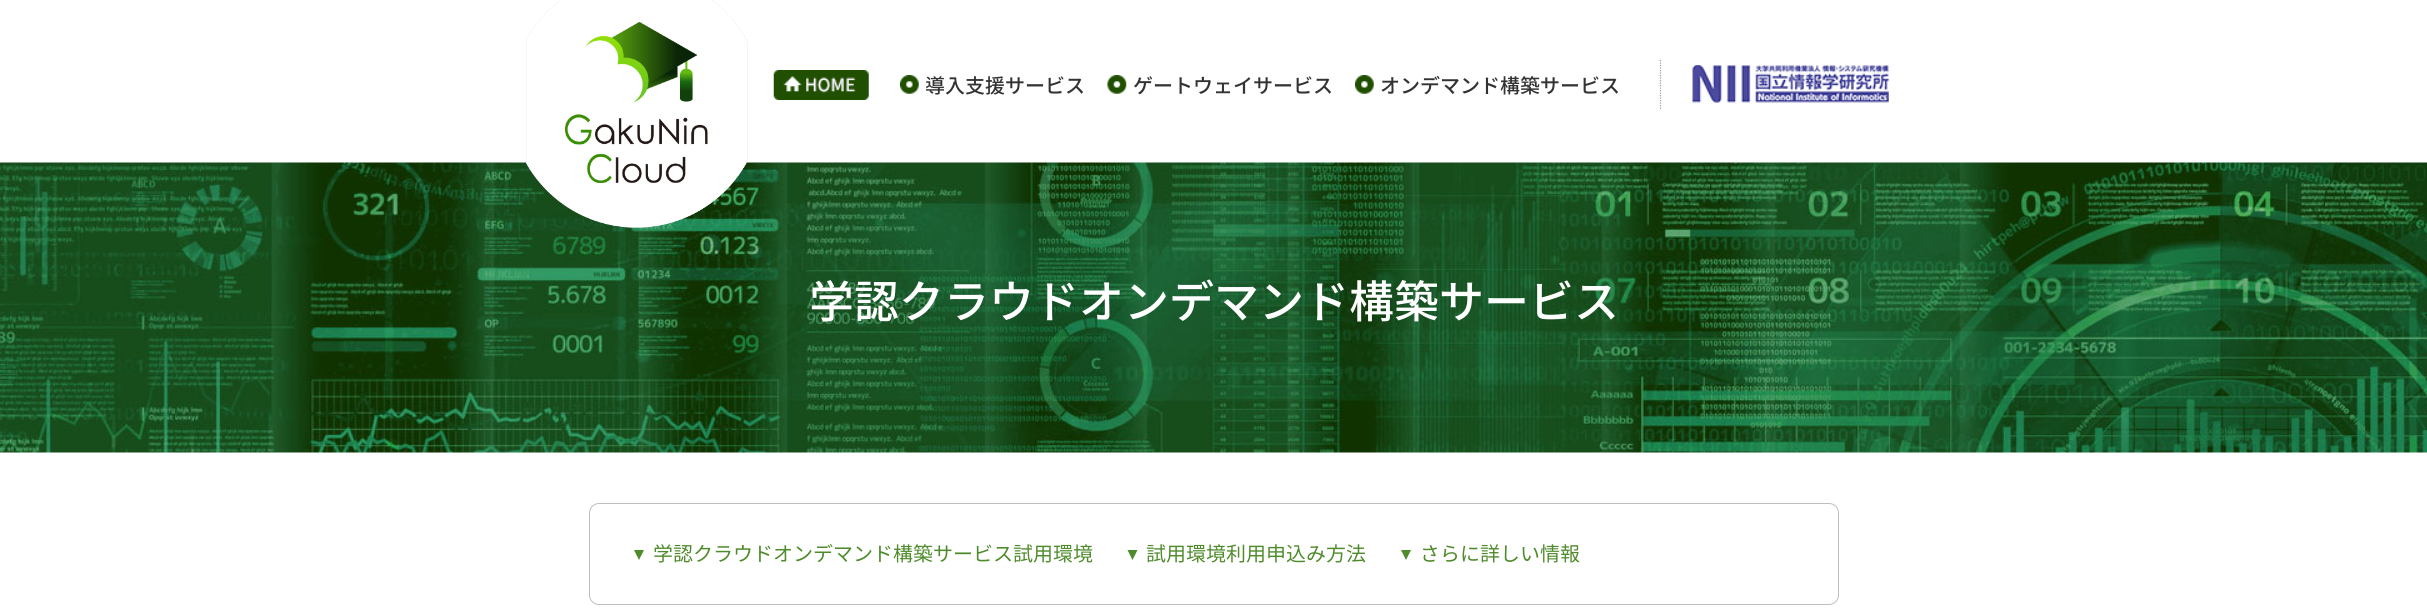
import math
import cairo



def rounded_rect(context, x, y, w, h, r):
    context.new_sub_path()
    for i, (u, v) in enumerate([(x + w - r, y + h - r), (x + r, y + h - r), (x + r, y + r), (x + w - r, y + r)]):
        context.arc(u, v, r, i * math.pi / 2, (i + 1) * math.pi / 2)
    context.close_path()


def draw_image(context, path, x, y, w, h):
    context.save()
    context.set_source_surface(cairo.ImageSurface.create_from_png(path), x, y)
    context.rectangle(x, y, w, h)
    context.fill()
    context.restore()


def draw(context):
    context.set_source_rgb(1, 1, 1)
    context.paint()
    draw_image(context, "images/7.png", 0, 162, 2427, 291)
    draw_image(context, "images/1.png", 526, 0, 222, 228)
    draw_image(context, "images/2.png", 526, 0, 222, 228)
    draw_image(context, "images/3.png", 773, 70, 96, 30)
    draw_image(context, "images/4.png", 900, 75, 19, 19)
    draw_image(context, "images/5.png", 1107, 75, 20, 19)
    draw_image(context, "images/4.png", 1355, 75, 19, 19)
    context.new_path()
    context.move_to(1660.5, 60)
    context.line_to(1660.5, 110)
    context.set_source_rgb(158 / 255, 158 / 255, 158 / 255)
    context.set_line_width(1.2)
    context.set_dash([1.25, 1.25])
    context.stroke()
    draw_image(context, "images/6.png", 1692, 65, 197, 38)
    rounded_rect(context, 589.5, 503.5, 1249, 101, 9.5)
    context.set_source_rgb(190 / 255, 190 / 255, 190 / 255)
    context.set_line_width(1)
    context.set_dash([])
    context.stroke()
    context.set_source_rgb(78 / 255, 139 / 255, 42 / 255)
    context.new_path()
    context.move_to(634, 550)
    context.line_to(644, 550)
    context.line_to(639, 560)
    context.close_path()
    context.fill()
    context.new_path()
    context.move_to(1127.5, 550)
    context.line_to(1137.5, 550)
    context.line_to(1132.5, 560)
    context.close_path()
    context.fill()
    context.new_path()
    context.move_to(1401, 550)
    context.line_to(1411, 550)
    context.line_to(1406, 560)
    context.close_path()
    context.fill()
    context.select_font_face("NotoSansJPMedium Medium")
    context.set_font_size(20)
    context.set_source_rgb(51 / 255, 51 / 255, 51 / 255)
    context.move_to(925, 93)
    context.show_text("導入支援サービス")
    context.move_to(1133, 93)
    context.show_text("ゲートウェイサービス")
    context.move_to(1380, 93)
    context.show_text("オンデマンド構築サービス")
    context.set_font_size(45)
    context.set_source_rgb(1, 1, 1)
    context.move_to(809, 318)
    context.show_text("学認クラウドオンデマンド構築サービス")
    context.select_font_face("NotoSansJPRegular")
    context.set_font_size(20)
    context.set_source_rgb(78 / 255, 139 / 255, 42 / 255)
    context.move_to(653, 561)
    context.show_text("学認クラウドオンデマンド構築サービス試用環境")
    context.move_to(1146, 561)
    context.show_text("試用環境利用申込み方法")
    context.move_to(1420, 561)
    context.show_text("さらに詳しい情報")


surface = cairo.ImageSurface(cairo.Format.RGB24, 2427, 616)
context = cairo.Context(surface)
options = cairo.FontOptions()
options.set_hint_metrics(cairo.HintMetrics.OFF)
options.set_hint_style(cairo.HintStyle.NONE)
context.set_font_options(options)
context.set_miter_limit(4)
draw(context)
surface.write_to_png("out.png")
